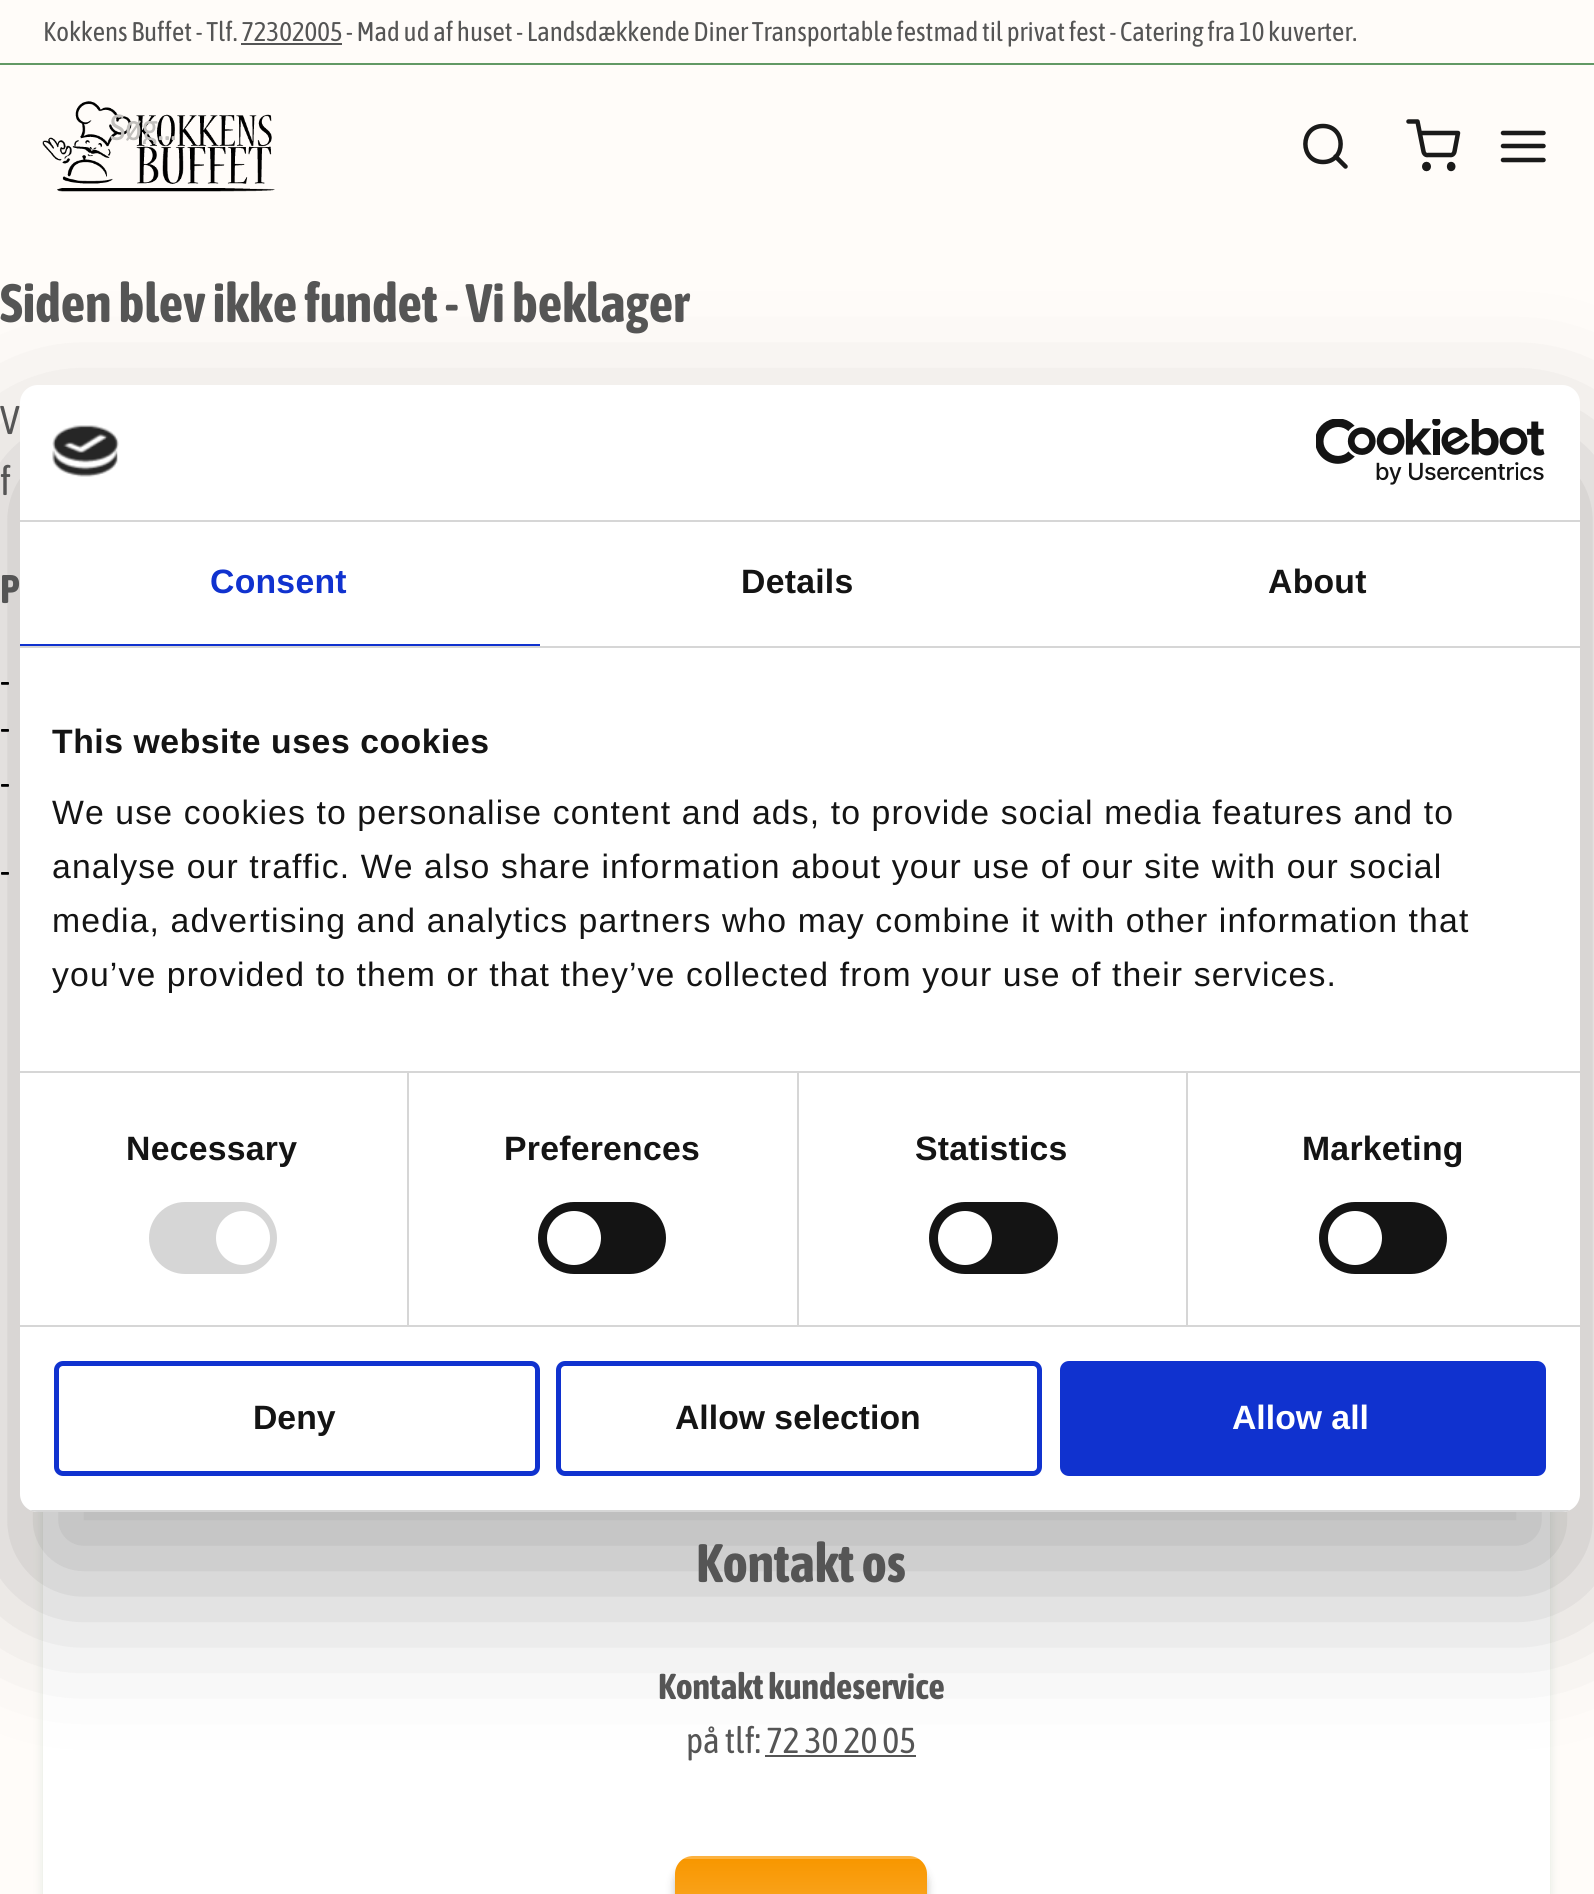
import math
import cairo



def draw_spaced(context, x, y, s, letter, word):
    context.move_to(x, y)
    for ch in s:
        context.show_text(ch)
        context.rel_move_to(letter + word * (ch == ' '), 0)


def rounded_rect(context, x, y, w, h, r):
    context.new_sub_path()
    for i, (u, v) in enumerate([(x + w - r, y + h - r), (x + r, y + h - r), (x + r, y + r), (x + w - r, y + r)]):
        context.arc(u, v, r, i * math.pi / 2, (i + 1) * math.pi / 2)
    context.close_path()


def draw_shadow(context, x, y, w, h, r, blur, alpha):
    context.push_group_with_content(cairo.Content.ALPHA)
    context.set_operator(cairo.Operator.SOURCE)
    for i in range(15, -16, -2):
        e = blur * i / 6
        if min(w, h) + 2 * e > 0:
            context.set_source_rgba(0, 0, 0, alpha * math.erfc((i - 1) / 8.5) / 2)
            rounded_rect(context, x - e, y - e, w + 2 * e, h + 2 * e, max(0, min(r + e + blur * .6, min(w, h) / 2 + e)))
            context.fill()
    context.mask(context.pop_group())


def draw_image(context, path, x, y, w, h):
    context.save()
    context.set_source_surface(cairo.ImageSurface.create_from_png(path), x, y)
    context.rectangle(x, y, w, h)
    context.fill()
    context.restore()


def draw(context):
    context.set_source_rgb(1, 252 / 255, 249 / 255)
    context.paint()
    context.set_source_rgb(98 / 255, 153 / 255, 101 / 255)
    context.rectangle(0, 63, 1594, 2)
    context.fill()
    context.set_source_rgb(85 / 255, 85 / 255, 85 / 255)
    context.rectangle(241, 43, 101, 2)
    context.fill()
    draw_image(context, "images/1.png", 42, 101, 233, 91)
    context.new_path()
    context.move_to(1323, 162)
    context.curve_to(1346.5, 162, 1346.5, 126, 1323, 126)
    context.curve_to(1299.5, 126, 1299.5, 162, 1323, 162)
    context.close_path()
    context.move_to(1345.5, 166.5)
    context.line_to(1335.5, 156.5)
    context.set_source_rgb(26 / 255, 26 / 255, 26 / 255)
    context.set_line_width(4.5)
    context.set_line_cap(cairo.LineCap.ROUND)
    context.set_line_join(cairo.LineJoin.ROUND)
    context.stroke()
    context.new_path()
    context.move_to(1451, 169)
    context.curve_to(1454, 169, 1454, 164, 1451, 164)
    context.curve_to(1448.5, 164, 1448.5, 169, 1451, 169)
    context.close_path()
    context.move_to(1426.5, 169)
    context.curve_to(1429.5, 169, 1429.5, 164, 1426.5, 164)
    context.curve_to(1423.5, 164, 1423.5, 169, 1426.5, 169)
    context.close_path()
    context.move_to(1408.5, 121.5)
    context.line_to(1417.5, 121.5)
    context.line_to(1423.5, 151.5)
    context.curve_to(1424, 154, 1426, 155.5, 1428, 155)
    context.line_to(1450, 155)
    context.curve_to(1452, 155.5, 1454, 154, 1454.5, 151.5)
    context.line_to(1458, 133)
    context.line_to(1420, 133)
    context.stroke()
    context.new_path()
    context.move_to(1503, 146)
    context.line_to(1543.5, 146)
    context.move_to(1503, 133)
    context.line_to(1543.5, 133)
    context.move_to(1503, 160)
    context.line_to(1543.5, 160)
    context.stroke()
    context.set_source_rgb(1 / 255, 83 / 255, 39 / 255)
    draw_shadow(context, 43, 1458, 1507, 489, 36, 5.5, 0.12)
    context.set_source_rgb(1, 1, 1)
    context.rectangle(43, 1512, 1507, 382)
    context.fill()
    context.set_source_rgb(85 / 255, 85 / 255, 85 / 255)
    context.rectangle(765, 1755, 151, 2)
    context.fill()
    context.set_source_rgb(0, 0, 0)
    draw_shadow(context, 675, 1865, 252, 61, 18, 4.5, 0.25)
    context.save()
    rounded_rect(context, 675, 1856, 252, 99, 18)
    context.clip()
    gradient = cairo.LinearGradient(801, 1764, 801, 1859)
    gradient.add_color_stop_rgba(0, 248 / 255, 151 / 255, 0, 1)
    gradient.add_color_stop_rgba(0, 248 / 255, 151 / 255, 0, 1)
    gradient.add_color_stop_rgba(1, 252 / 255, 178 / 255, 64 / 255, 1)
    context.set_source(gradient)
    context.rectangle(675, 1856, 252, 3)
    context.fill()
    gradient = cairo.LinearGradient(801, 1859, 801, 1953)
    gradient.add_color_stop_rgba(0, 248 / 255, 151 / 255, 0, 1)
    gradient.add_color_stop_rgba(0, 248 / 255, 151 / 255, 0, 1)
    gradient.add_color_stop_rgba(1, 252 / 255, 178 / 255, 64 / 255, 1)
    context.set_source(gradient)
    context.rectangle(675, 1859, 252, 35)
    context.fill()
    context.restore()
    draw_shadow(context, 20, 457, 1560, 1127, 18, 76.5, 0.3)
    context.set_source_rgb(1, 1, 1)
    rounded_rect(context, 20, 385, 1560, 1127, 18)
    context.fill()
    context.set_source_rgb(214 / 255, 214 / 255, 214 / 255)
    context.rectangle(20, 520, 1560, 2)
    context.fill()
    draw_image(context, "images/2.png", 52, 425, 67, 52)
    draw_image(context, "images/3.png", 1316, 419, 229, 66)
    context.rectangle(20, 646, 1560, 2)
    context.fill()
    context.set_source_rgb(16 / 255, 50 / 255, 207 / 255)
    context.rectangle(20, 644, 520, 2)
    context.fill()
    context.set_source_rgb(214 / 255, 214 / 255, 214 / 255)
    context.rectangle(20, 1071, 1560, 2)
    context.fill()
    context.rectangle(20, 1325, 1560, 2)
    context.fill()
    context.rectangle(407, 1073, 2, 252)
    context.fill()
    rounded_rect(context, 149, 1202, 128, 72, 36)
    context.fill()
    context.set_source_rgb(1, 1, 1)
    context.arc(243, 1238, 27, 0, 2 * math.pi)
    context.fill()
    context.set_source_rgb(214 / 255, 214 / 255, 214 / 255)
    context.rectangle(797, 1073, 2, 252)
    context.fill()
    context.set_source_rgb(20 / 255, 20 / 255, 20 / 255)
    rounded_rect(context, 538, 1202, 128, 72, 36)
    context.fill()
    context.set_source_rgb(1, 1, 1)
    context.arc(574, 1238, 27, 0, 2 * math.pi)
    context.fill()
    context.set_source_rgb(214 / 255, 214 / 255, 214 / 255)
    context.rectangle(1186, 1073, 2, 252)
    context.fill()
    context.set_source_rgb(20 / 255, 20 / 255, 20 / 255)
    rounded_rect(context, 929, 1202, 129, 72, 36)
    context.fill()
    context.set_source_rgb(1, 1, 1)
    context.arc(965, 1238, 27, 0, 2 * math.pi)
    context.fill()
    context.set_source_rgb(20 / 255, 20 / 255, 20 / 255)
    rounded_rect(context, 1319, 1202, 128, 72, 36)
    context.fill()
    context.set_source_rgb(1, 1, 1)
    context.arc(1355, 1238, 27, 0, 2 * math.pi)
    context.fill()
    context.save()
    rounded_rect(context, 20, 385, 1560, 1127, 18)
    context.clip()
    context.set_source_rgb(214 / 255, 214 / 255, 214 / 255)
    context.rectangle(30, 1510, 1540, 2)
    context.fill()
    context.restore()
    rounded_rect(context, 56.5, 1363.5, 481, 110, 6.5)
    context.set_source_rgb(16 / 255, 50 / 255, 207 / 255)
    context.set_line_width(5)
    context.set_line_cap(cairo.LineCap.BUTT)
    context.set_line_join(cairo.LineJoin.MITER)
    context.stroke()
    rounded_rect(context, 558.5, 1363.5, 481, 110, 6.5)
    context.stroke()
    rounded_rect(context, 1062.5, 1363.5, 481, 110, 6.5)
    context.fill_preserve()
    context.stroke()
    context.select_font_face("Asap Condensed")
    context.set_font_size(27)
    context.set_source_rgb(85 / 255, 85 / 255, 85 / 255)
    context.move_to(43, 41)
    context.show_text("Kokkens Buffet - Tlf. 72302005")
    context.move_to(346, 41)
    context.show_text("- Mad ud af huset - Landsdækkende Diner Transportable festmad til privat fest - Catering fra 10 kuverter.")
    context.save()
    context.rectangle(110, 106, 1321, 38)
    context.clip()
    context.set_font_size(36)
    context.set_source_rgb(194 / 255, 192 / 255, 189 / 255)
    context.move_to(110, 140)
    context.show_text("Søg...")
    context.restore()
    context.select_font_face("Asap Condensed", cairo.FontSlant.NORMAL, cairo.FontWeight.BOLD)
    context.set_font_size(54)
    context.move_to(0, 322)
    context.show_text("Siden blev ikke fundet - Vi beklager")
    context.select_font_face("Asap Condensed")
    context.set_font_size(40)
    context.move_to(0, 434)
    context.show_text("V")
    context.move_to(0, 495)
    context.show_text("f")
    context.select_font_face("Asap Condensed", cairo.FontSlant.NORMAL, cairo.FontWeight.BOLD)
    context.move_to(0, 603)
    context.show_text("P")
    context.select_font_face("Asap Condensed")
    context.set_source_rgb(0, 0, 0)
    context.move_to(0, 694)
    context.show_text("-")
    context.move_to(0, 741)
    context.show_text("-")
    context.move_to(0, 796)
    context.show_text("-")
    context.move_to(0, 884)
    context.show_text("-")
    context.select_font_face("Asap Condensed", cairo.FontSlant.NORMAL, cairo.FontWeight.BOLD)
    context.set_font_size(54)
    context.set_source_rgb(85 / 255, 85 / 255, 85 / 255)
    context.move_to(696, 1582)
    context.show_text("Kontakt os")
    context.set_font_size(36)
    context.move_to(658, 1699)
    context.show_text("Kontakt kundeservice")
    context.select_font_face("Asap Condensed")
    context.move_to(686, 1753)
    context.show_text("på tlf: 72 30 20 05")
    context.select_font_face("Liberation Sans", cairo.FontSlant.NORMAL, cairo.FontWeight.BOLD)
    context.set_font_size(33.75)
    context.set_source_rgb(16 / 255, 50 / 255, 207 / 255)
    draw_spaced(context, 210, 593, "Consent", 0.25, 0)
    context.set_source_rgb(20 / 255, 20 / 255, 20 / 255)
    draw_spaced(context, 741, 593, "Details", 0.25, 0)
    draw_spaced(context, 1268, 593, "About", 0.25, 0)
    draw_spaced(context, 52, 753, "This website uses cookies", 0.55, 0)
    context.select_font_face("Liberation Sans")
    draw_spaced(context, 52, 824, "We use cookies to personalise content and ads, to provide social media features and to", 1.12, 0)
    draw_spaced(context, 52, 878, "analyse our traffic. We also share information about your use of our site with our social", 1.12, 0)
    draw_spaced(context, 52, 932, "media, advertising and analytics partners who may combine it with other information that", 1.12, 0)
    draw_spaced(context, 52, 986, "you’ve provided to them or that they’ve collected from your use of their services.", 1.12, 0)
    context.select_font_face("Liberation Sans", cairo.FontSlant.NORMAL, cairo.FontWeight.BOLD)
    draw_spaced(context, 126, 1160, "Necessary", 0.25, 0)
    draw_spaced(context, 504, 1160, "Preferences", 0.25, 0)
    draw_spaced(context, 915, 1160, "Statistics", 0.25, 0)
    draw_spaced(context, 1302, 1160, "Marketing", 0.25, 0)
    context.move_to(253, 1429)
    context.show_text("Deny")
    context.move_to(675, 1429)
    context.show_text("Allow selection")
    context.set_source_rgb(1, 1, 1)
    context.move_to(1232, 1429)
    context.show_text("Allow all")


surface = cairo.ImageSurface(cairo.Format.RGB24, 1594, 1894)
context = cairo.Context(surface)
options = cairo.FontOptions()
options.set_hint_metrics(cairo.HintMetrics.OFF)
options.set_hint_style(cairo.HintStyle.NONE)
context.set_font_options(options)
context.set_miter_limit(4)
draw(context)
surface.write_to_png("out.png")
